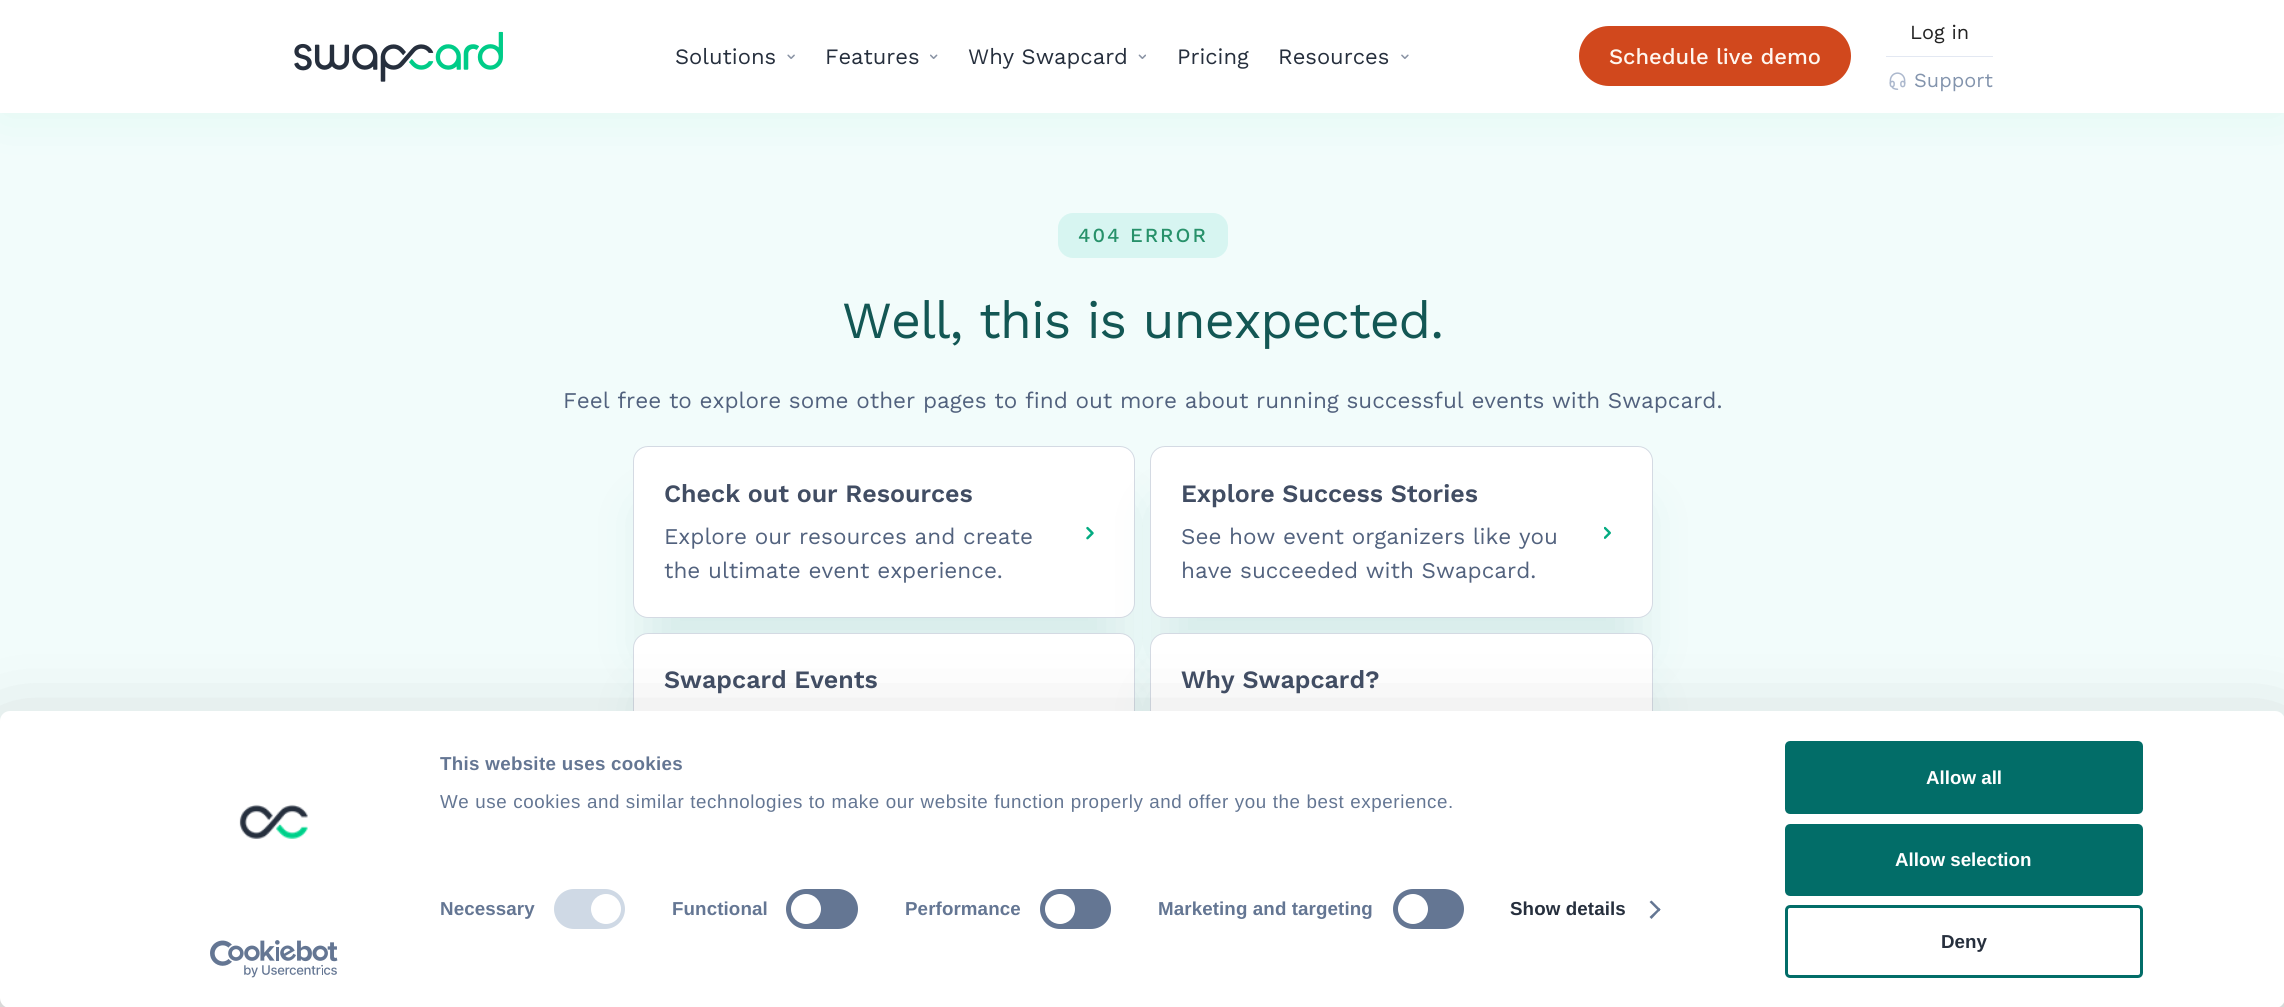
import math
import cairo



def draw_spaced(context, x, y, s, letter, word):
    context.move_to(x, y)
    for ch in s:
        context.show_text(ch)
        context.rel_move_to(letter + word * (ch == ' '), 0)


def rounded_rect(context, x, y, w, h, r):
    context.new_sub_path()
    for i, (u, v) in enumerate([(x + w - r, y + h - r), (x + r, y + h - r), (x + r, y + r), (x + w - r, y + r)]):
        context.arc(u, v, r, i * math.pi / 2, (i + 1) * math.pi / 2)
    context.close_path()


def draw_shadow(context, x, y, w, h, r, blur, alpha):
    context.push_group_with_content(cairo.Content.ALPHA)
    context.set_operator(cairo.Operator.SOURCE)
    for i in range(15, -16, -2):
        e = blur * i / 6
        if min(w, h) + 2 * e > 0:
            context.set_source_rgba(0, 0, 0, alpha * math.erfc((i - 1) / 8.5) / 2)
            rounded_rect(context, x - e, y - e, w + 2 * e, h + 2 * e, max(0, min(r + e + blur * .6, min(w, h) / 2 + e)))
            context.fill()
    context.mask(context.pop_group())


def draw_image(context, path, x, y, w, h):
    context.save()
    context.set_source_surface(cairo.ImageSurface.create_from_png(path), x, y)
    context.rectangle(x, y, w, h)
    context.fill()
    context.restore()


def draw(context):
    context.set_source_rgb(1, 1, 1)
    context.paint()
    context.set_source_rgb(242 / 255, 252 / 255, 251 / 255)
    context.rectangle(0, 113, 2284, 608)
    context.fill()
    context.set_source_rgb(0, 204 / 255, 136 / 255)
    draw_shadow(context, 0, 1, 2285, 113, 0, 27.5, 0.08)
    context.set_source_rgb(1, 1, 1)
    context.rectangle(0, 0, 2284, 113)
    context.fill()
    draw_image(context, "images/1.png", 294, 31, 209, 51)
    draw_image(context, "images/2.png", 787, 54, 8, 5)
    draw_image(context, "images/3.png", 930, 54, 8, 5)
    draw_image(context, "images/4.png", 1138, 54, 8, 5)
    draw_image(context, "images/5.png", 1401, 54, 8, 5)
    context.set_source_rgb(209 / 255, 72 / 255, 29 / 255)
    rounded_rect(context, 1579, 26, 272, 60, 30)
    context.fill()
    context.set_source_rgb(227 / 255, 232 / 255, 242 / 255)
    context.rectangle(1886, 56, 107, 1)
    context.fill()
    draw_image(context, "images/6.png", 1889, 72, 17, 18)
    context.set_source_rgb(215 / 255, 245 / 255, 241 / 255)
    rounded_rect(context, 1058, 213, 170, 45, 15)
    context.fill()
    context.set_source_rgb(2 / 255, 109 / 255, 104 / 255)
    draw_shadow(context, 648, 511, 472, 142, 0, 27.5, 0.12)
    context.set_source_rgb(1, 1, 1)
    rounded_rect(context, 633.5, 446.5, 501, 171, 14.5)
    context.fill_preserve()
    context.set_source_rgb(212 / 255, 218 / 255, 227 / 255)
    context.set_line_width(1)
    context.stroke()
    draw_image(context, "images/7.png", 1086, 526, 8, 14)
    context.set_source_rgb(2 / 255, 109 / 255, 104 / 255)
    draw_shadow(context, 1165, 511, 473, 142, 0, 27.5, 0.12)
    context.set_source_rgb(1, 1, 1)
    rounded_rect(context, 1150.5, 446.5, 502, 171, 14.5)
    context.fill_preserve()
    context.set_source_rgb(212 / 255, 218 / 255, 227 / 255)
    context.stroke()
    draw_image(context, "images/8.png", 1604, 526, 7, 13)
    context.set_source_rgb(2 / 255, 109 / 255, 104 / 255)
    draw_shadow(context, 648, 698, 472, 175, 0, 27.5, 0.12)
    context.set_source_rgb(1, 1, 1)
    rounded_rect(context, 633.5, 633.5, 501, 204, 14.5)
    context.fill_preserve()
    context.set_source_rgb(212 / 255, 218 / 255, 227 / 255)
    context.stroke()
    context.set_source_rgb(2 / 255, 109 / 255, 104 / 255)
    draw_shadow(context, 1165, 698, 473, 175, 0, 27.5, 0.12)
    context.set_source_rgb(1, 1, 1)
    rounded_rect(context, 1150.5, 633.5, 502, 204, 14.5)
    context.fill_preserve()
    context.set_source_rgb(212 / 255, 218 / 255, 227 / 255)
    context.stroke()
    context.set_source_rgb(0, 0, 0)
    draw_shadow(context, 0, 749, 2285, 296, 10, 44, 0.3)
    context.set_source_rgb(1, 1, 1)
    rounded_rect(context, 0, 711, 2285, 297, 10)
    context.fill()
    draw_image(context, "images/9.png", 239, 804, 69, 35)
    draw_image(context, "images/10.png", 210, 940, 128, 38)
    context.set_source_rgb(207 / 255, 217 / 255, 229 / 255)
    rounded_rect(context, 554, 889, 71, 40, 20)
    context.fill()
    context.set_source_rgb(1, 1, 1)
    context.arc(606, 909, 15, 0, 2 * math.pi)
    context.fill()
    context.set_source_rgb(100 / 255, 118 / 255, 147 / 255)
    rounded_rect(context, 786, 889, 72, 40, 20)
    context.fill()
    context.set_source_rgb(1, 1, 1)
    context.arc(806, 909, 15, 0, 2 * math.pi)
    context.fill()
    context.set_source_rgb(100 / 255, 118 / 255, 147 / 255)
    rounded_rect(context, 1040, 889, 71, 40, 20)
    context.fill()
    context.set_source_rgb(1, 1, 1)
    context.arc(1060, 909, 15, 0, 2 * math.pi)
    context.fill()
    context.set_source_rgb(100 / 255, 118 / 255, 147 / 255)
    rounded_rect(context, 1393, 889, 71, 40, 20)
    context.fill()
    context.set_source_rgb(1, 1, 1)
    context.arc(1413, 909, 15, 0, 2 * math.pi)
    context.fill()
    context.set_source_rgb(100 / 255, 118 / 255, 147 / 255)
    context.new_path()
    context.move_to(1651.5, 900.5)
    context.line_to(1660.5, 909.5)
    context.line_to(1659, 911.5)
    context.line_to(1649.5, 902)
    context.close_path()
    context.fill()
    context.new_path()
    context.move_to(1659, 908)
    context.line_to(1660.5, 909.5)
    context.line_to(1651.5, 919)
    context.line_to(1649.5, 917)
    context.close_path()
    context.fill()
    context.set_source_rgb(2 / 255, 109 / 255, 104 / 255)
    rounded_rect(context, 1786.5, 742.5, 355, 70, 3.5)
    context.fill_preserve()
    context.set_line_width(3)
    context.stroke()
    rounded_rect(context, 1786.5, 825.5, 355, 69, 3.5)
    context.fill_preserve()
    context.stroke()
    rounded_rect(context, 1786.5, 906.5, 355, 70, 3.5)
    context.stroke()
    context.select_font_face("Work Sans")
    context.set_font_size(22)
    context.set_source_rgb(38 / 255, 47 / 255, 61 / 255)
    context.move_to(675, 64)
    context.show_text("Solutions")
    context.move_to(825, 64)
    context.show_text("Features")
    context.move_to(968, 64)
    context.show_text("Why Swapcard")
    context.move_to(1177, 64)
    context.show_text("Pricing")
    context.move_to(1278, 64)
    context.show_text("Resources")
    context.select_font_face("Work Sans Medium")
    context.set_source_rgb(1, 246 / 255, 239 / 255)
    context.move_to(1609, 64)
    context.show_text("Schedule live demo")
    context.select_font_face("Work Sans")
    context.set_font_size(20)
    context.set_source_rgb(34 / 255, 34 / 255, 34 / 255)
    context.move_to(1910, 39)
    context.show_text("Log in")
    context.set_source_rgb(131 / 255, 148 / 255, 173 / 255)
    context.move_to(1914, 87)
    context.show_text("Support")
    context.select_font_face("Work Sans Medium")
    context.set_source_rgb(39 / 255, 145 / 255, 106 / 255)
    draw_spaced(context, 1078, 242, "404 ERROR", 2, 0)
    context.select_font_face("Work Sans")
    context.set_font_size(52)
    context.set_source_rgb(19 / 255, 87 / 255, 84 / 255)
    draw_spaced(context, 842, 338, "Well, this is unexpected.", -1.05, 0)
    context.set_font_size(22.5)
    context.set_source_rgb(82 / 255, 98 / 255, 126 / 255)
    context.move_to(563, 408)
    context.show_text("Feel free to explore some other pages to find out more about running successful events with Swapcard.")
    context.select_font_face("Work Sans SemiBold")
    context.set_font_size(25)
    context.set_source_rgb(65 / 255, 77 / 255, 99 / 255)
    context.move_to(664, 502)
    context.show_text("Check out our Resources")
    context.select_font_face("Work Sans")
    context.set_font_size(22.5)
    context.set_source_rgb(82 / 255, 98 / 255, 126 / 255)
    context.move_to(664, 544)
    context.show_text("Explore our resources and create")
    context.move_to(664, 578)
    context.show_text("the ultimate event experience.")
    context.select_font_face("Work Sans SemiBold")
    context.set_font_size(25)
    context.set_source_rgb(65 / 255, 77 / 255, 99 / 255)
    context.move_to(1181, 502)
    context.show_text("Explore Success Stories")
    context.select_font_face("Work Sans")
    context.set_font_size(22.5)
    context.set_source_rgb(82 / 255, 98 / 255, 126 / 255)
    context.move_to(1181, 544)
    context.show_text("See how event organizers like you")
    context.move_to(1181, 578)
    context.show_text("have succeeded with Swapcard.")
    context.select_font_face("Work Sans SemiBold")
    context.set_font_size(25)
    context.set_source_rgb(65 / 255, 77 / 255, 99 / 255)
    context.move_to(664, 688)
    context.show_text("Swapcard Events")
    context.move_to(1181, 688)
    context.show_text("Why Swapcard?")
    context.select_font_face("Liberation Sans", cairo.FontSlant.NORMAL, cairo.FontWeight.BOLD)
    context.set_font_size(18.75)
    context.set_source_rgb(100 / 255, 118 / 255, 147 / 255)
    draw_spaced(context, 440, 770, "This website uses cookies", 0.3, 0)
    context.select_font_face("Liberation Sans")
    draw_spaced(context, 440, 808, "We use cookies and similar technologies to make our website function properly and offer you the best experience.", 0.62, 0)
    context.select_font_face("Liberation Sans", cairo.FontSlant.NORMAL, cairo.FontWeight.BOLD)
    draw_spaced(context, 440, 915, "Necessary", 0.1, 0)
    draw_spaced(context, 672, 915, "Functional", 0.1, 0)
    draw_spaced(context, 905, 915, "Performance", 0.1, 0)
    draw_spaced(context, 1158, 915, "Marketing and targeting", 0.1, 0)
    context.set_source_rgb(38 / 255, 47 / 255, 61 / 255)
    draw_spaced(context, 1510, 915, "Show details", 0.1, 0)
    context.set_source_rgb(1, 1, 1)
    context.move_to(1926, 784)
    context.show_text("Allow all")
    context.move_to(1895, 866)
    context.show_text("Allow selection")
    context.set_source_rgb(38 / 255, 47 / 255, 61 / 255)
    context.move_to(1941, 948)
    context.show_text("Deny")


surface = cairo.ImageSurface(cairo.Format.RGB24, 2284, 1007)
context = cairo.Context(surface)
options = cairo.FontOptions()
options.set_hint_metrics(cairo.HintMetrics.OFF)
options.set_hint_style(cairo.HintStyle.NONE)
context.set_font_options(options)
context.set_miter_limit(4)
draw(context)
surface.write_to_png("out.png")
